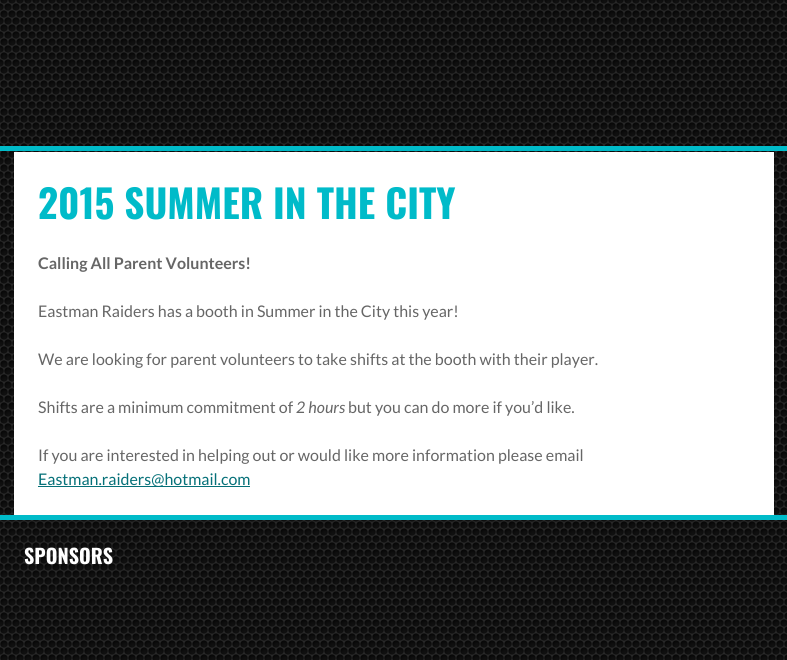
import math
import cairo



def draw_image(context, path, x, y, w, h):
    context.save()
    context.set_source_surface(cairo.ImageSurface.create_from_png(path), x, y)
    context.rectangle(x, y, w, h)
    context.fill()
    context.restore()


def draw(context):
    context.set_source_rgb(1, 1, 1)
    context.paint()
    draw_image(context, "images/1.png", 0, 151, 787, 509)
    draw_image(context, "images/2.png", 0, 0, 787, 146)
    context.set_source_rgb(0, 187 / 255, 201 / 255)
    context.rectangle(0, 146, 787, 5)
    context.fill()
    context.set_source_rgb(1, 1, 1)
    context.rectangle(14, 152, 760, 363)
    context.fill()
    context.set_source_rgb(5 / 255, 112 / 255, 120 / 255)
    context.rectangle(38, 486, 212, 1)
    context.fill()
    context.set_source_rgb(0, 187 / 255, 201 / 255)
    context.rectangle(0, 515, 787, 5)
    context.fill()
    context.select_font_face("Oswald", cairo.FontSlant.NORMAL, cairo.FontWeight.BOLD)
    context.set_font_size(39)
    context.move_to(38, 219)
    context.show_text("2015 SUMMER IN THE CITY")
    context.select_font_face("Lato", cairo.FontSlant.NORMAL, cairo.FontWeight.BOLD)
    context.set_font_size(16)
    context.set_source_rgb(102 / 255, 102 / 255, 102 / 255)
    context.move_to(38, 269)
    context.show_text("Calling All Parent Volunteers!")
    context.select_font_face("Lato")
    context.move_to(38, 317)
    context.show_text("Eastman Raiders has a booth in Summer in the City this year!")
    context.move_to(38, 365)
    context.show_text("We are looking for parent volunteers to take shifts at the booth with their player.")
    context.move_to(38, 413)
    context.show_text("Shifts are a minimum commitment of")
    context.select_font_face("Lato", cairo.FontSlant.ITALIC)
    context.move_to(296, 413)
    context.show_text("2 hours")
    context.select_font_face("Lato")
    context.move_to(348, 413)
    context.show_text("but you can do more if you’d like.")
    context.move_to(38, 461)
    context.show_text("If you are interested in helping out or would like more information please email")
    context.set_source_rgb(5 / 255, 112 / 255, 120 / 255)
    context.move_to(38, 485)
    context.show_text("Eastman.raiders@hotmail.com")
    context.select_font_face("Oswald", cairo.FontSlant.NORMAL, cairo.FontWeight.BOLD)
    context.set_font_size(20)
    context.set_source_rgb(1, 1, 1)
    context.move_to(24, 564)
    context.show_text("SPONSORS")


surface = cairo.ImageSurface(cairo.Format.RGB24, 787, 660)
context = cairo.Context(surface)
options = cairo.FontOptions()
options.set_hint_metrics(cairo.HintMetrics.OFF)
options.set_hint_style(cairo.HintStyle.NONE)
context.set_font_options(options)
context.set_miter_limit(4)
draw(context)
surface.write_to_png("out.png")
